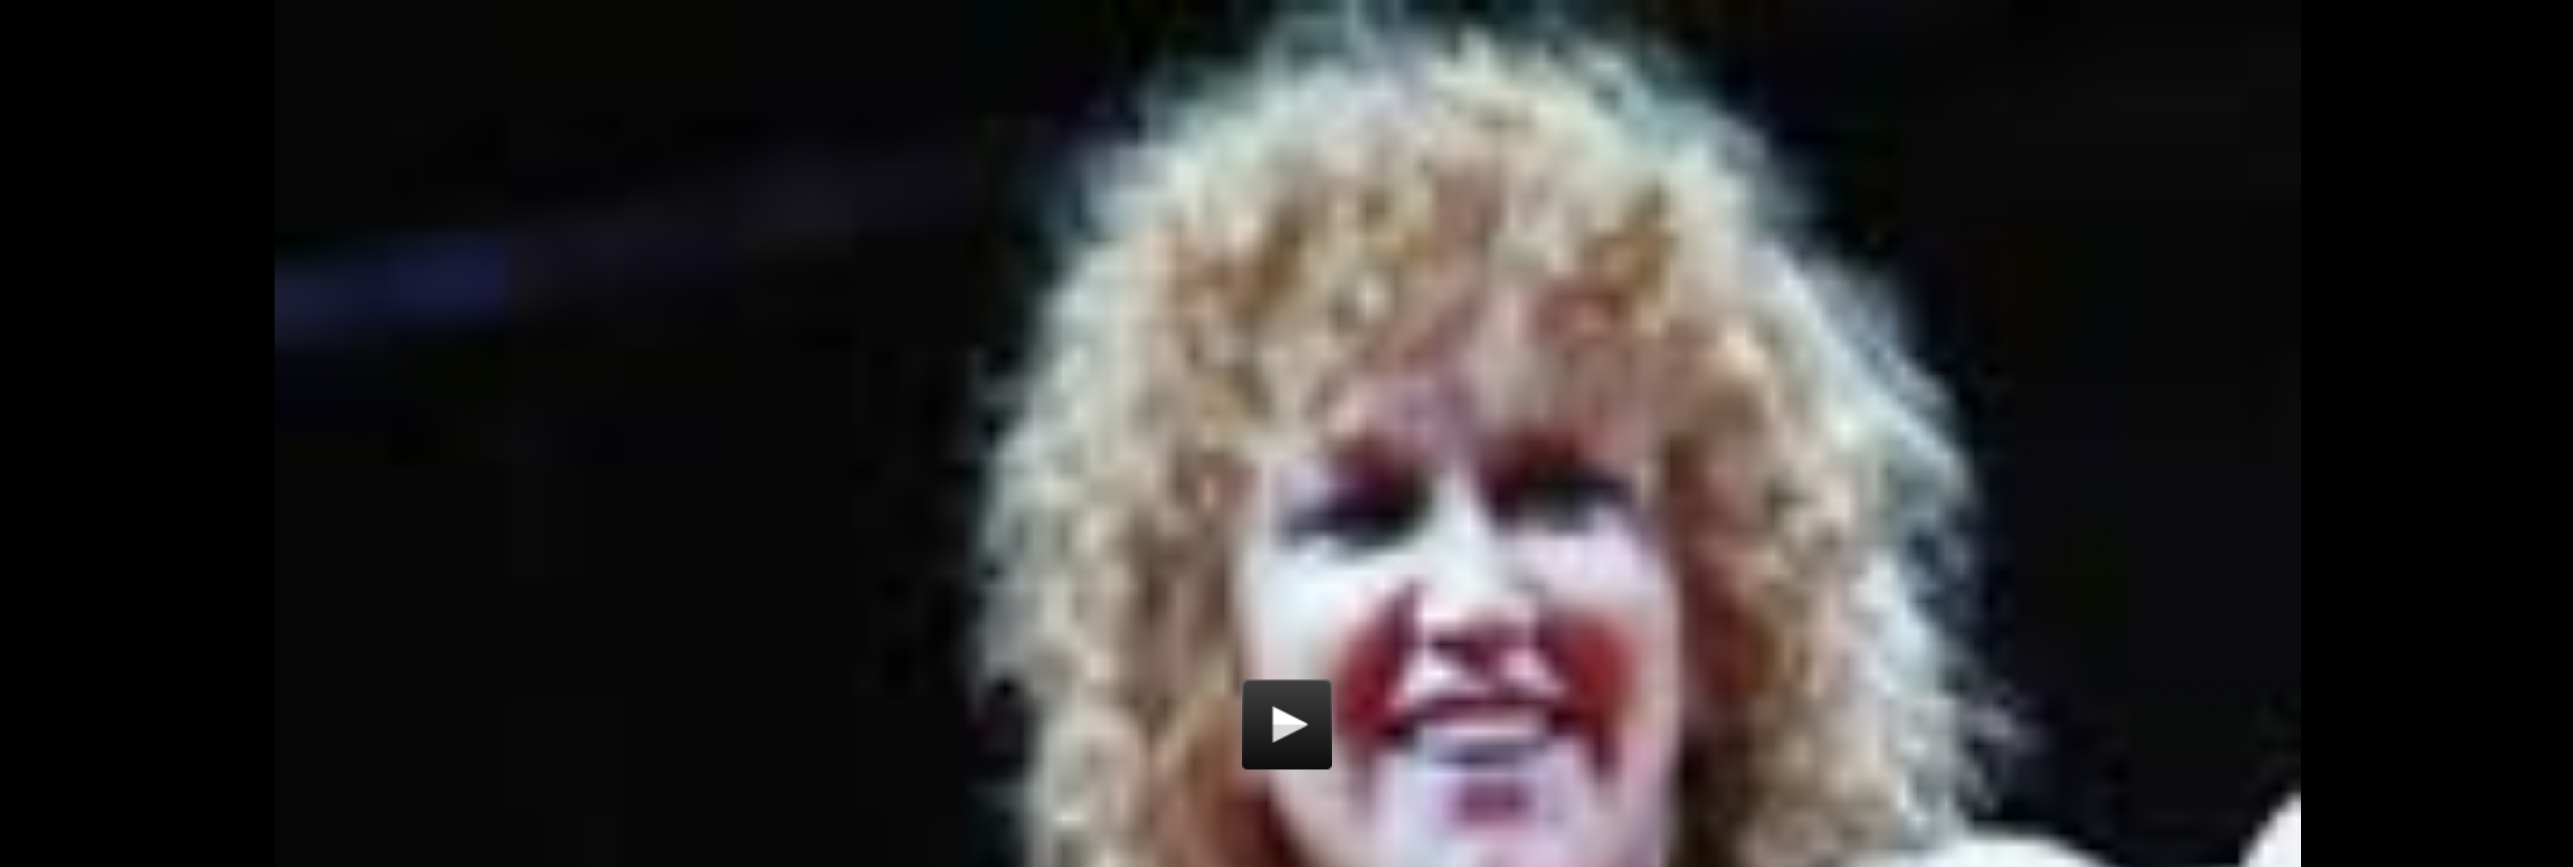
import math
import cairo



def draw_image(context, path, x, y, w, h):
    context.save()
    context.set_source_surface(cairo.ImageSurface.create_from_png(path), x, y)
    context.rectangle(x, y, w, h)
    context.fill()
    context.restore()


def draw(context):
    context.set_source_rgb(0, 0, 0)
    context.paint()
    draw_image(context, "images/1.png", 274, 0, 2027, 867)
    draw_image(context, "images/2.png", 1242, 679, 90, 91)
    draw_image(context, "images/3.png", 1271, 706, 38, 37)


surface = cairo.ImageSurface(cairo.Format.RGB24, 2573, 867)
context = cairo.Context(surface)
options = cairo.FontOptions()
options.set_hint_metrics(cairo.HintMetrics.OFF)
options.set_hint_style(cairo.HintStyle.NONE)
context.set_font_options(options)
context.set_miter_limit(4)
draw(context)
surface.write_to_png("out.png")
